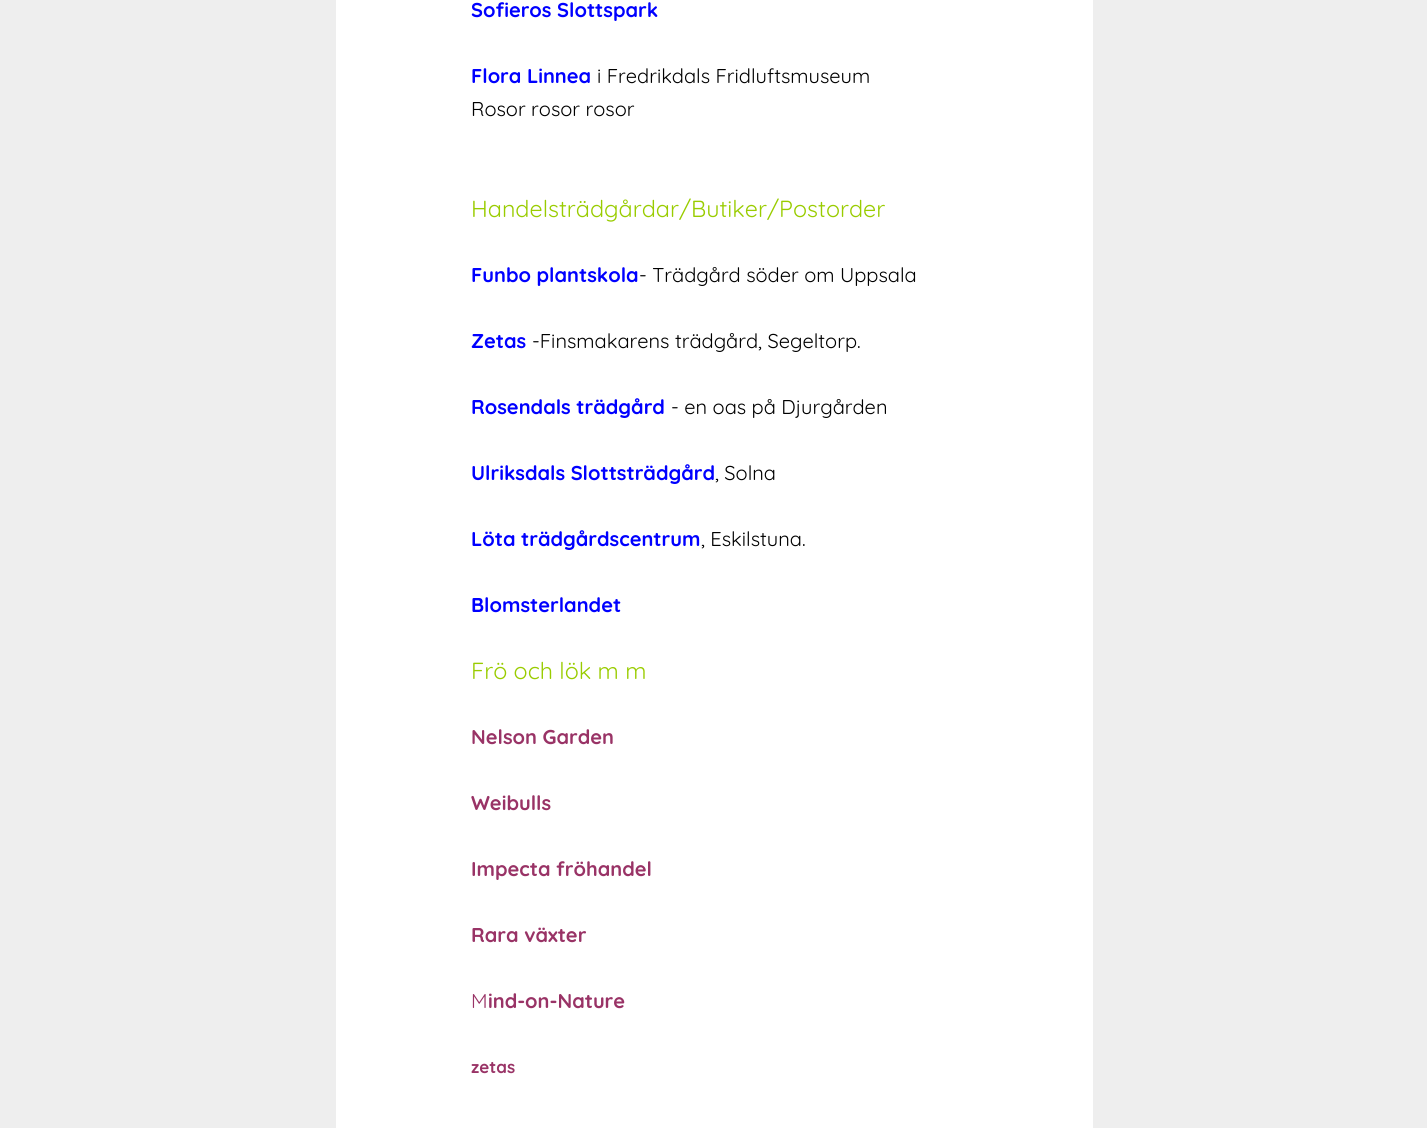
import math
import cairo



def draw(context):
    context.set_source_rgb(238 / 255, 238 / 255, 238 / 255)
    context.paint()
    context.set_source_rgb(1, 1, 1)
    context.rectangle(336, 0, 757, 1128)
    context.fill()
    context.select_font_face("Quicksand", cairo.FontSlant.NORMAL, cairo.FontWeight.BOLD)
    context.set_font_size(20)
    context.set_source_rgb(0, 0, 1)
    context.move_to(471, 17)
    context.show_text("Sofieros Slottspark")
    context.move_to(471, 83)
    context.show_text("Flora Linnea")
    context.select_font_face("Quicksand")
    context.set_source_rgb(0, 0, 0)
    context.move_to(597, 83)
    context.show_text("i Fredrikdals Fridluftsmuseum")
    context.move_to(471, 116)
    context.show_text("Rosor rosor rosor")
    context.set_font_size(23.3)
    context.set_source_rgb(153 / 255, 204 / 255, 0)
    context.move_to(471, 217)
    context.show_text("Handelsträdgårdar/Butiker/Postorder")
    context.select_font_face("Quicksand", cairo.FontSlant.NORMAL, cairo.FontWeight.BOLD)
    context.set_font_size(20)
    context.set_source_rgb(0, 0, 1)
    context.move_to(471, 282)
    context.show_text("Funbo plantskola")
    context.select_font_face("Quicksand")
    context.set_source_rgb(0, 0, 0)
    context.move_to(639, 282)
    context.show_text("- Trädgård söder om Uppsala")
    context.select_font_face("Quicksand", cairo.FontSlant.NORMAL, cairo.FontWeight.BOLD)
    context.set_source_rgb(0, 0, 1)
    context.move_to(471, 348)
    context.show_text("Zetas")
    context.select_font_face("Quicksand")
    context.set_source_rgb(0, 0, 0)
    context.move_to(532, 348)
    context.show_text("-Finsmakarens trädgård, Segeltorp.")
    context.select_font_face("Quicksand", cairo.FontSlant.NORMAL, cairo.FontWeight.BOLD)
    context.set_source_rgb(0, 0, 1)
    context.move_to(471, 414)
    context.show_text("Rosendals trädgård")
    context.select_font_face("Quicksand")
    context.set_source_rgb(0, 0, 0)
    context.move_to(671, 414)
    context.show_text("- en oas på Djurgården")
    context.select_font_face("Quicksand", cairo.FontSlant.NORMAL, cairo.FontWeight.BOLD)
    context.set_source_rgb(0, 0, 1)
    context.move_to(471, 480)
    context.show_text("Ulriksdals Slottsträdgård")
    context.select_font_face("Quicksand")
    context.set_source_rgb(0, 0, 0)
    context.move_to(715, 480)
    context.show_text(", Solna")
    context.select_font_face("Quicksand", cairo.FontSlant.NORMAL, cairo.FontWeight.BOLD)
    context.set_source_rgb(0, 0, 1)
    context.move_to(471, 546)
    context.show_text("Löta trädgårdscentrum")
    context.select_font_face("Quicksand")
    context.set_source_rgb(0, 0, 0)
    context.move_to(701, 546)
    context.show_text(", Eskilstuna.")
    context.select_font_face("Quicksand", cairo.FontSlant.NORMAL, cairo.FontWeight.BOLD)
    context.set_source_rgb(0, 0, 1)
    context.move_to(471, 612)
    context.show_text("Blomsterlandet")
    context.select_font_face("Quicksand")
    context.set_font_size(23.3)
    context.set_source_rgb(153 / 255, 204 / 255, 0)
    context.move_to(471, 679)
    context.show_text("Frö och lök m m")
    context.select_font_face("Quicksand", cairo.FontSlant.NORMAL, cairo.FontWeight.BOLD)
    context.set_font_size(20)
    context.set_source_rgb(153 / 255, 51 / 255, 102 / 255)
    context.move_to(471, 744)
    context.show_text("Nelson Garden")
    context.move_to(471, 810)
    context.show_text("Weibulls")
    context.move_to(471, 876)
    context.show_text("Impecta fröhandel")
    context.move_to(471, 942)
    context.show_text("Rara växter")
    context.select_font_face("Quicksand")
    context.move_to(471, 1008)
    context.show_text("M")
    context.select_font_face("Quicksand", cairo.FontSlant.NORMAL, cairo.FontWeight.BOLD)
    context.move_to(488, 1008)
    context.show_text("ind-on-Nature")
    context.set_font_size(17)
    context.move_to(471, 1073)
    context.show_text("zetas")


surface = cairo.ImageSurface(cairo.Format.RGB24, 1427, 1128)
context = cairo.Context(surface)
options = cairo.FontOptions()
options.set_hint_metrics(cairo.HintMetrics.OFF)
options.set_hint_style(cairo.HintStyle.NONE)
context.set_font_options(options)
context.set_miter_limit(4)
draw(context)
surface.write_to_png("out.png")
